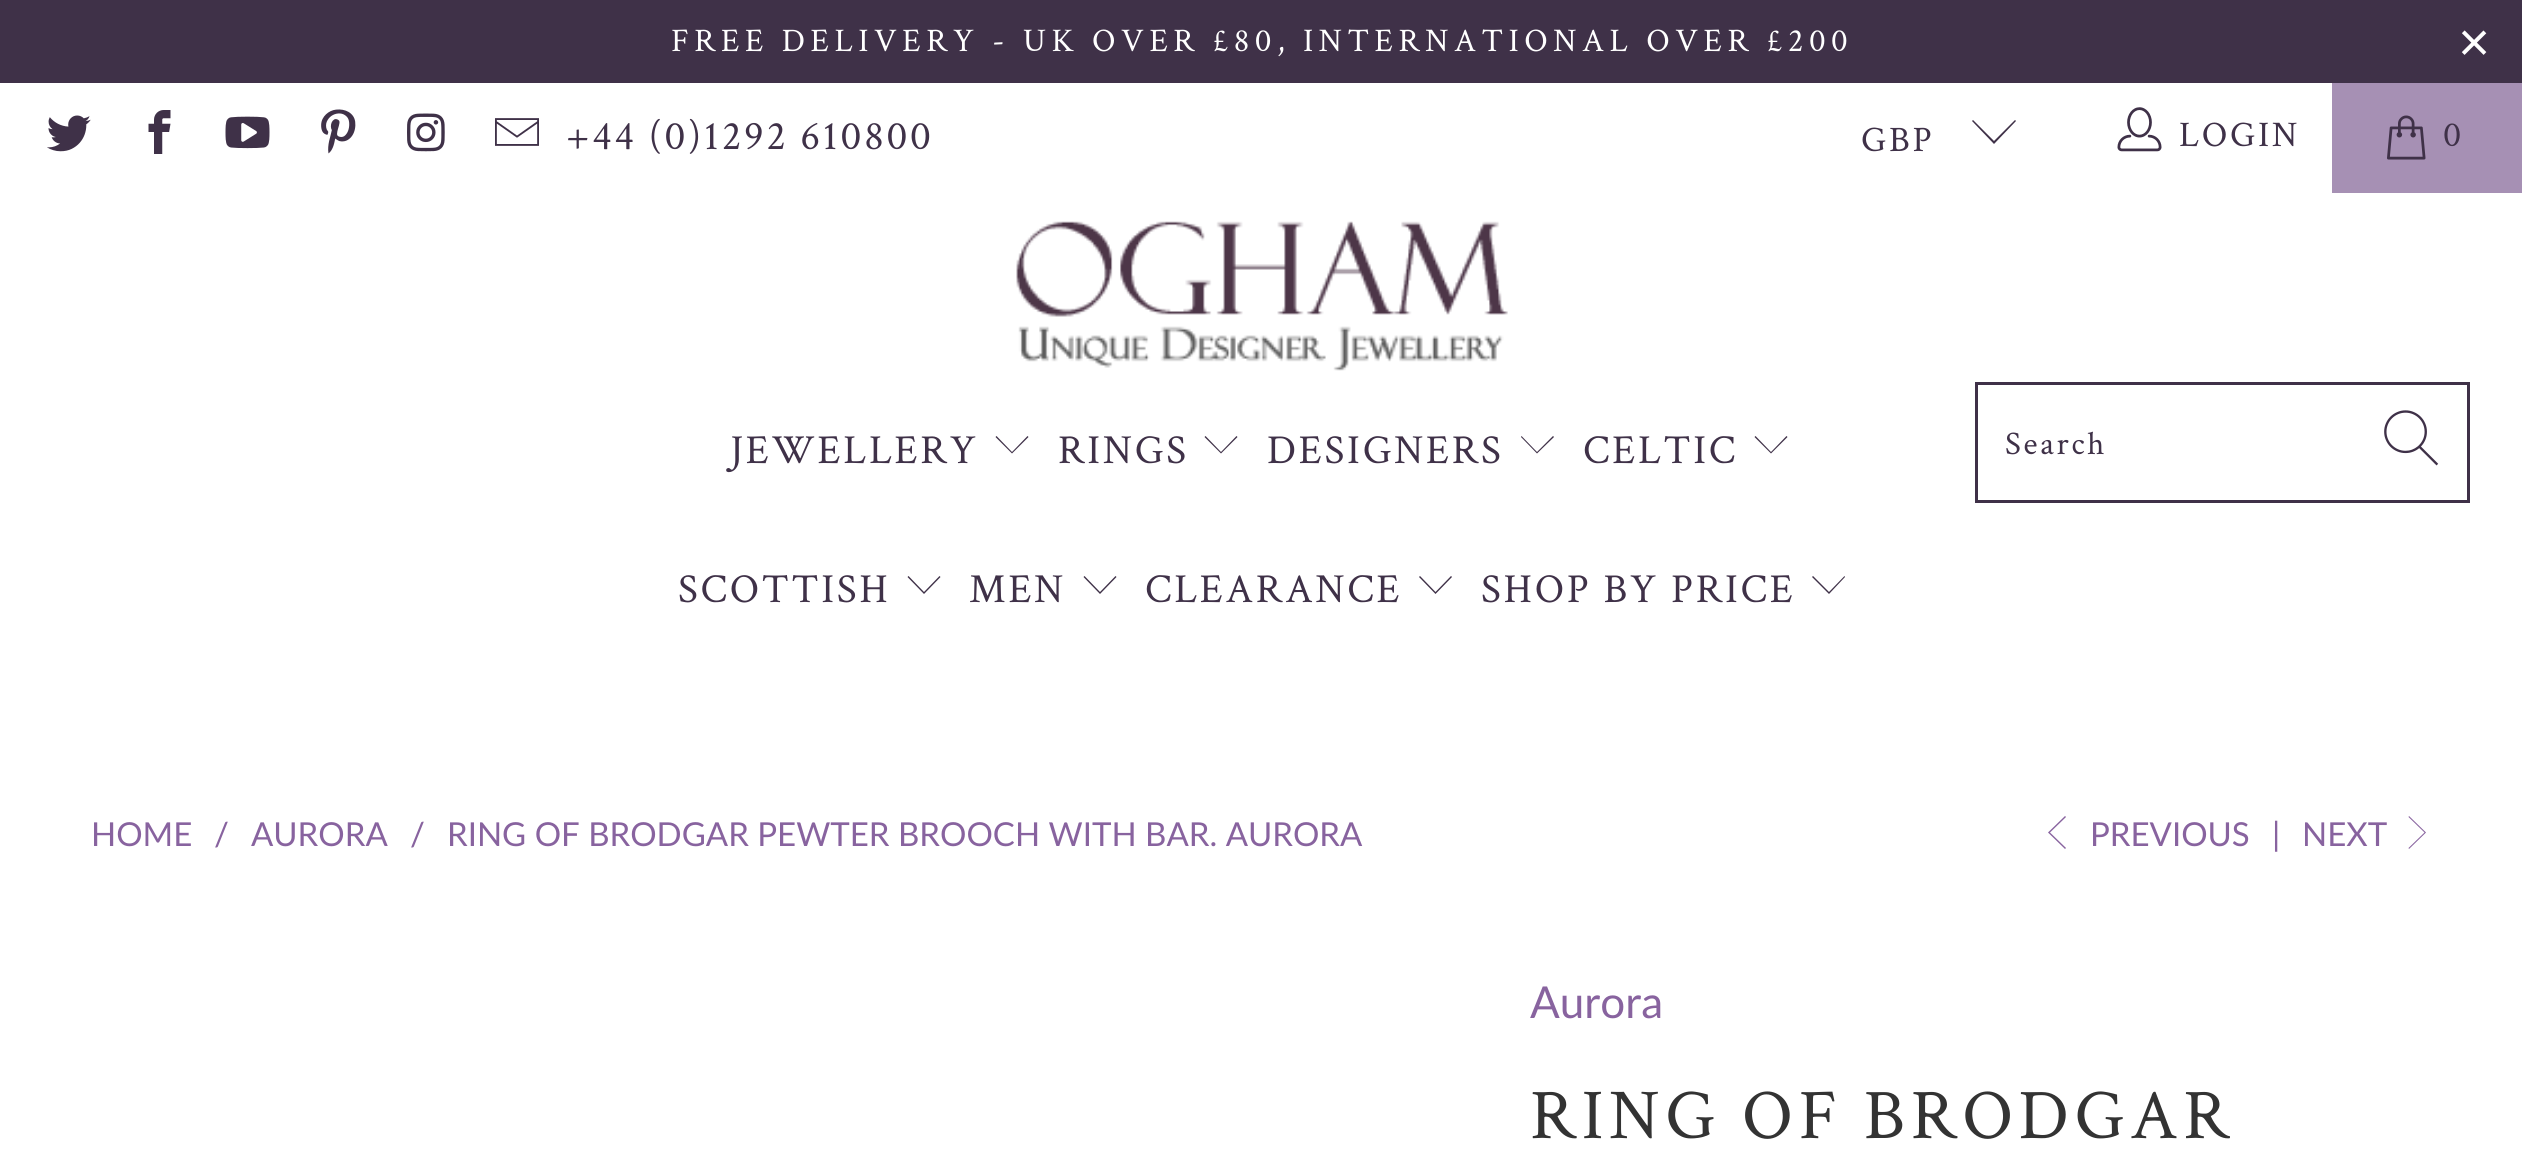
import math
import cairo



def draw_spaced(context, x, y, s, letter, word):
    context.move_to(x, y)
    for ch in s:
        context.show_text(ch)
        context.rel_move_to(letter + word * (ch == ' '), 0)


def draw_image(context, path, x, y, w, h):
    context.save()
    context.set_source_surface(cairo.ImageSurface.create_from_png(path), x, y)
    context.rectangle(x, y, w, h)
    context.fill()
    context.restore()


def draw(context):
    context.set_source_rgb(1, 1, 1)
    context.paint()
    context.set_source_rgb(63 / 255, 49 / 255, 72 / 255)
    context.rectangle(0, 0, 2522, 83)
    context.fill()
    draw_image(context, "images/1.png", 47, 115, 44, 37)
    draw_image(context, "images/2.png", 148, 110, 23, 44)
    draw_image(context, "images/3.png", 225, 116, 45, 33)
    draw_image(context, "images/4.png", 321, 109, 35, 45)
    draw_image(context, "images/5.png", 407, 113, 38, 39)
    draw_image(context, "images/6.png", 495, 118, 44, 28)
    context.new_path()
    context.move_to(1994, 144)
    context.line_to(1972, 121)
    context.line_to(1973, 120)
    context.line_to(1994, 141)
    context.line_to(2015, 120)
    context.line_to(2016, 121)
    context.close_path()
    context.fill()
    draw_image(context, "images/7.png", 2117, 107, 45, 45)
    context.set_source_rgb(166 / 255, 144 / 255, 180 / 255)
    context.rectangle(2332, 83, 190, 110)
    context.fill()
    draw_image(context, "images/8.png", 2387, 115, 39, 45)
    draw_image(context, "images/9.png", 1016, 221, 492, 150)
    context.set_source_rgb(63 / 255, 49 / 255, 72 / 255)
    context.new_path()
    context.move_to(1012, 453.5)
    context.line_to(995.5, 437)
    context.line_to(996.5, 436)
    context.line_to(1012, 452)
    context.line_to(1027.5, 436)
    context.line_to(1028.5, 437)
    context.close_path()
    context.fill()
    context.new_path()
    context.move_to(1221, 453.5)
    context.line_to(1204.5, 437)
    context.line_to(1205.5, 436)
    context.line_to(1221, 452)
    context.line_to(1236.5, 436)
    context.line_to(1237.5, 437)
    context.close_path()
    context.fill()
    context.new_path()
    context.move_to(1537, 453.5)
    context.line_to(1521, 437)
    context.line_to(1521.5, 436)
    context.line_to(1537, 452)
    context.line_to(1553, 436)
    context.line_to(1554, 437)
    context.close_path()
    context.fill()
    context.new_path()
    context.move_to(1771, 453.5)
    context.line_to(1754.5, 437)
    context.line_to(1755.5, 436)
    context.line_to(1771, 452)
    context.line_to(1786.5, 436)
    context.line_to(1787.5, 437)
    context.close_path()
    context.fill()
    context.new_path()
    context.move_to(924, 594)
    context.line_to(907.5, 577)
    context.line_to(908.5, 576)
    context.line_to(924, 592)
    context.line_to(939.5, 576)
    context.line_to(940.5, 577)
    context.close_path()
    context.fill()
    context.new_path()
    context.move_to(1100, 594)
    context.line_to(1083.5, 577)
    context.line_to(1084.5, 576)
    context.line_to(1100, 592)
    context.line_to(1115.5, 576)
    context.line_to(1116.5, 577)
    context.close_path()
    context.fill()
    context.new_path()
    context.move_to(1435.5, 594)
    context.line_to(1419, 577)
    context.line_to(1420, 576)
    context.line_to(1435.5, 592)
    context.line_to(1451, 576)
    context.line_to(1452, 577)
    context.close_path()
    context.fill()
    context.new_path()
    context.move_to(1829, 594)
    context.line_to(1812, 577)
    context.line_to(1813, 576)
    context.line_to(1829, 592)
    context.line_to(1844.5, 576)
    context.line_to(1845, 577)
    context.close_path()
    context.fill()
    context.rectangle(1976.5, 383.5, 492, 118)
    context.set_line_width(3)
    context.stroke()
    draw_image(context, "images/10.png", 2384, 410, 55, 56)
    context.set_source_rgb(136 / 255, 99 / 255, 159 / 255)
    context.new_path()
    context.move_to(2065, 849)
    context.line_to(2048, 832.5)
    context.line_to(2065, 816)
    context.line_to(2066, 817)
    context.line_to(2050, 832.5)
    context.line_to(2066, 848)
    context.close_path()
    context.fill()
    context.new_path()
    context.move_to(2409, 849)
    context.line_to(2408.5, 848)
    context.line_to(2424.5, 832.5)
    context.line_to(2408.5, 817)
    context.line_to(2409, 816)
    context.line_to(2426, 832.5)
    context.close_path()
    context.fill()
    context.select_font_face("Crimson Text")
    context.set_font_size(33)
    context.set_source_rgb(1, 1, 1)
    draw_spaced(context, 671, 51, "FREE DELIVERY - UK OVER £80, INTERNATIONAL OVER £200", 5.5, 0)
    context.select_font_face("Liberation Sans")
    context.set_font_size(55)
    draw_spaced(context, 2458, 61, "×", 5.5, 0)
    context.select_font_face("Crimson Text")
    context.set_font_size(41.25)
    context.set_source_rgb(63 / 255, 49 / 255, 72 / 255)
    draw_spaced(context, 566, 149, "+44 (0)1292 610800", 2.75, 0)
    context.set_font_size(36)
    draw_spaced(context, 1861, 151, "GBP", 2.75, 0)
    draw_spaced(context, 2179, 146, "LOGIN", 2.75, 0)
    draw_spaced(context, 2443, 146, "0", 2.75, 0)
    context.set_font_size(41.25)
    draw_spaced(context, 730, 463, "JEWELLERY", 2.75, 0)
    draw_spaced(context, 1058, 463, "RINGS", 2.75, 0)
    draw_spaced(context, 1267, 463, "DESIGNERS", 2.75, 0)
    draw_spaced(context, 1583, 463, "CELTIC", 2.75, 0)
    draw_spaced(context, 678, 602, "SCOTTISH", 2.75, 0)
    draw_spaced(context, 969, 602, "MEN", 2.75, 0)
    draw_spaced(context, 1145, 602, "CLEARANCE", 2.75, 0)
    draw_spaced(context, 1481, 602, "SHOP BY PRICE", 2.75, 0)
    context.set_font_size(33)
    draw_spaced(context, 2005, 454, "Search", 2.75, 0)
    context.select_font_face("Lato")
    context.set_source_rgb(136 / 255, 99 / 255, 159 / 255)
    context.move_to(91, 846)
    context.show_text("HOME")
    context.move_to(214, 846)
    context.show_text("/")
    context.move_to(251, 846)
    context.show_text("AURORA")
    context.move_to(410, 846)
    context.show_text("/")
    context.move_to(447, 846)
    context.show_text("RING OF BRODGAR PEWTER BROOCH WITH BAR. AURORA")
    context.move_to(2090, 846)
    context.show_text("PREVIOUS")
    context.move_to(2272, 846)
    context.show_text("|")
    context.move_to(2302, 846)
    context.show_text("NEXT")
    context.set_font_size(44)
    context.move_to(1530, 1018)
    context.show_text("Aurora")
    context.select_font_face("Crimson Text")
    context.set_font_size(71.5)
    context.set_source_rgb(51 / 255, 51 / 255, 51 / 255)
    draw_spaced(context, 1530, 1138, "RING OF BRODGAR", 5.5, 0)


surface = cairo.ImageSurface(cairo.Format.RGB24, 2522, 1157)
context = cairo.Context(surface)
options = cairo.FontOptions()
options.set_hint_metrics(cairo.HintMetrics.OFF)
options.set_hint_style(cairo.HintStyle.NONE)
context.set_font_options(options)
context.set_miter_limit(4)
draw(context)
surface.write_to_png("out.png")
